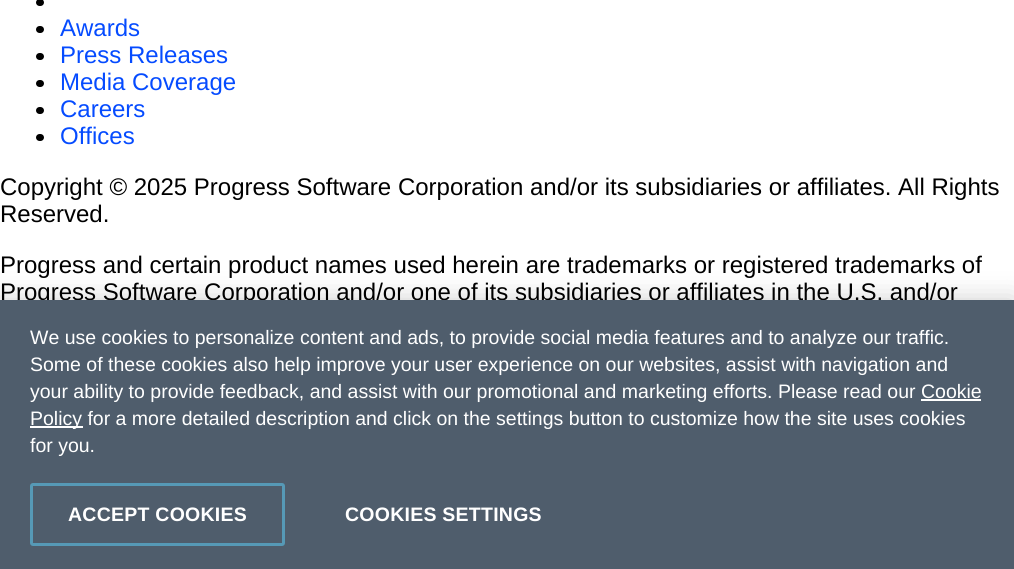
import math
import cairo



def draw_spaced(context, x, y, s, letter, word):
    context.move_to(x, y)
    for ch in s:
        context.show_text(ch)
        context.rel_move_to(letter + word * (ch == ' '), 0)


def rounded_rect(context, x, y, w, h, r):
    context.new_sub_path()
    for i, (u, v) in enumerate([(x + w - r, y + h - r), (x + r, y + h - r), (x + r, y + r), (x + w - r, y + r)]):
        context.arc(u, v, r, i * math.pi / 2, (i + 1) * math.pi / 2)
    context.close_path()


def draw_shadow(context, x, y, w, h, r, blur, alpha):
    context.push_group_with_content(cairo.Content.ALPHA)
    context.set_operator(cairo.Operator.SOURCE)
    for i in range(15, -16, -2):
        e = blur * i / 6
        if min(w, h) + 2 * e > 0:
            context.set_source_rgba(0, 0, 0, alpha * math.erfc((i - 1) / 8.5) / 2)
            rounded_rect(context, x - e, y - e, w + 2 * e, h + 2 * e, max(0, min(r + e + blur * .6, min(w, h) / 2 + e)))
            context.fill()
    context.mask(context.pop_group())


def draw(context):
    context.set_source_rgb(1, 1, 1)
    context.paint()
    context.set_source_rgb(0, 0, 0)
    rounded_rect(context, 36, -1, 8, 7, 3.5)
    context.fill()
    rounded_rect(context, 36, 26, 8, 7, 3.5)
    context.fill()
    rounded_rect(context, 36, 53, 8, 7, 3.5)
    context.fill()
    rounded_rect(context, 36, 80, 8, 7, 3.5)
    context.fill()
    rounded_rect(context, 36, 107, 8, 7, 3.5)
    context.fill()
    rounded_rect(context, 36, 134, 8, 7, 3.5)
    context.fill()
    context.set_source_rgb(0, 0, 0)
    draw_shadow(context, 0, 300, 1014, 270, 0, 13.5, 0.2)
    context.select_font_face("Liberation Sans")
    context.set_font_size(24)
    context.set_source_rgb(5 / 255, 75 / 255, 1)
    context.move_to(60, 36)
    context.show_text("Awards")
    context.move_to(60, 63)
    context.show_text("Press Releases")
    context.move_to(60, 90)
    context.show_text("Media Coverage")
    context.move_to(60, 117)
    context.show_text("Careers")
    context.move_to(60, 144)
    context.show_text("Offices")
    context.set_source_rgb(0, 0, 0)
    context.move_to(0, 195)
    context.show_text("Copyright © 2025 Progress Software Corporation and/or its subsidiaries or affiliates. All Rights")
    context.move_to(0, 222)
    context.show_text("Reserved.")
    context.move_to(0, 273)
    context.show_text("Progress and certain product names used herein are trademarks or registered trademarks of")
    context.move_to(0, 300)
    context.show_text("Progress Software Corporation and/or one of its subsidiaries or affiliates in the U.S. and/or")
    context.set_source_rgb(79 / 255, 93 / 255, 108 / 255)
    context.rectangle(0, 300, 1014, 269)
    context.fill()
    context.set_font_size(19.5)
    context.set_source_rgb(1, 1, 1)
    context.move_to(30, 344)
    context.show_text("We use cookies to personalize content and ads, to provide social media features and to analyze our traffic.")
    context.move_to(30, 371)
    context.show_text("Some of these cookies also help improve your user experience on our websites, assist with navigation and")
    context.move_to(30, 398)
    context.show_text("your ability to provide feedback, and assist with our promotional and marketing efforts. Please read our Cookie")
    context.rectangle(921, 399, 60, 2)
    context.fill()
    context.rectangle(30, 426, 53, 2)
    context.fill()
    context.move_to(30, 425)
    context.show_text("Policy for a more detailed description and click on the settings button to customize how the site uses cookies")
    context.move_to(30, 452)
    context.show_text("for you.")
    rounded_rect(context, 31.5, 484.5, 252, 60, 1.5)
    context.set_source_rgb(86 / 255, 153 / 255, 182 / 255)
    context.set_line_width(3)
    context.stroke()
    context.select_font_face("Liberation Sans", cairo.FontSlant.NORMAL, cairo.FontWeight.BOLD)
    context.set_source_rgb(1, 1, 1)
    draw_spaced(context, 68, 521, "ACCEPT COOKIES", 0.25, 0)
    draw_spaced(context, 345, 521, "COOKIES SETTINGS", 0.25, 0)


surface = cairo.ImageSurface(cairo.Format.RGB24, 1014, 569)
context = cairo.Context(surface)
options = cairo.FontOptions()
options.set_hint_metrics(cairo.HintMetrics.OFF)
options.set_hint_style(cairo.HintStyle.NONE)
context.set_font_options(options)
context.set_miter_limit(4)
draw(context)
surface.write_to_png("out.png")
